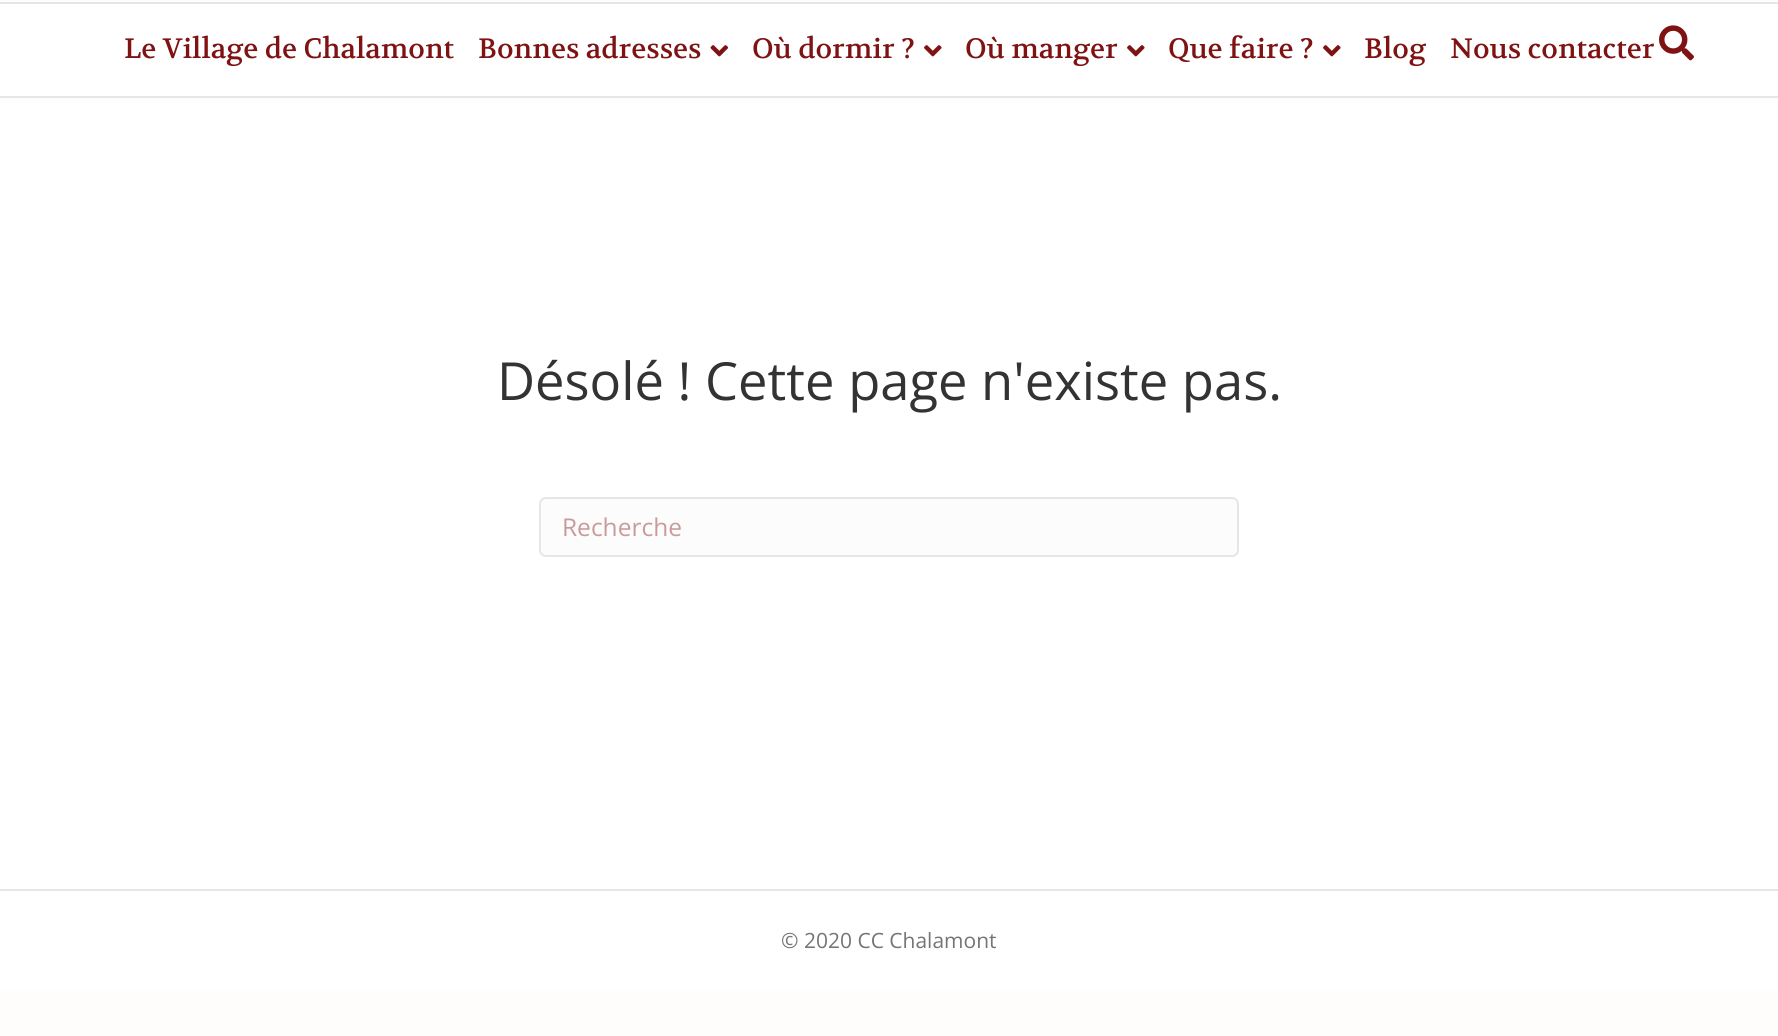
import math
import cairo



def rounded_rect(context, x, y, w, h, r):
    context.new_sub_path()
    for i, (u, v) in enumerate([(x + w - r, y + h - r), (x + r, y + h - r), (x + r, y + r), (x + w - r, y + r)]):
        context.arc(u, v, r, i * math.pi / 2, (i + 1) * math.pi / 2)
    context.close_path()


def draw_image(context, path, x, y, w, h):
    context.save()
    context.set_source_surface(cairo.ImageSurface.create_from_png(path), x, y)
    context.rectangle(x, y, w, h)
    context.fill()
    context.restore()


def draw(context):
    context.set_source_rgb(1, 252 / 255, 252 / 255)
    context.paint()
    context.set_source_rgb(1, 1, 1)
    context.rectangle(0, 4, 1778, 92)
    context.fill()
    context.set_source_rgb(230 / 255, 230 / 255, 230 / 255)
    context.rectangle(0, 2, 1778, 2)
    context.fill()
    context.rectangle(0, 96, 1778, 2)
    context.fill()
    draw_image(context, "images/1.png", 710, 45, 18, 12)
    draw_image(context, "images/2.png", 924, 45, 18, 12)
    draw_image(context, "images/2.png", 1127, 45, 18, 12)
    draw_image(context, "images/2.png", 1323, 45, 18, 12)
    draw_image(context, "images/3.png", 1659, 25, 35, 36)
    context.set_source_rgb(1, 1, 1)
    context.rectangle(0, 100, 1778, 789)
    context.fill()
    context.set_source_rgb(252 / 255, 252 / 255, 252 / 255)
    rounded_rect(context, 540, 498, 698, 58, 6)
    context.fill_preserve()
    context.set_source_rgb(230 / 255, 230 / 255, 230 / 255)
    context.stroke()
    context.set_source_rgb(1, 1, 1)
    context.rectangle(0, 891, 1778, 100)
    context.fill()
    context.set_source_rgb(230 / 255, 230 / 255, 230 / 255)
    context.rectangle(0, 889, 1778, 2)
    context.fill()
    context.select_font_face("Volkhov")
    context.set_font_size(28)
    context.set_source_rgb(127 / 255, 19 / 255, 19 / 255)
    context.move_to(124, 58)
    context.show_text("Le Village de Chalamont")
    context.move_to(478, 58)
    context.show_text("Bonnes adresses")
    context.move_to(752, 58)
    context.show_text("Où dormir ?")
    context.move_to(965, 58)
    context.show_text("Où manger")
    context.move_to(1168, 58)
    context.show_text("Que faire ?")
    context.move_to(1364, 58)
    context.show_text("Blog")
    context.move_to(1450, 58)
    context.show_text("Nous contacter")
    context.select_font_face("Open Sans")
    context.set_font_size(52.5)
    context.set_source_rgb(51 / 255, 51 / 255, 51 / 255)
    context.move_to(497, 400)
    context.show_text("Désolé ! Cette page n'existe pas.")
    context.set_font_size(24.5)
    context.set_source_rgb(202 / 255, 154 / 255, 154 / 255)
    context.move_to(562, 536)
    context.show_text("Recherche")
    context.set_font_size(21)
    context.set_source_rgb(117 / 255, 117 / 255, 117 / 255)
    context.move_to(781, 948)
    context.show_text("© 2020 CC Chalamont")


surface = cairo.ImageSurface(cairo.Format.RGB24, 1778, 1036)
context = cairo.Context(surface)
options = cairo.FontOptions()
options.set_hint_metrics(cairo.HintMetrics.OFF)
options.set_hint_style(cairo.HintStyle.NONE)
context.set_font_options(options)
context.set_miter_limit(4)
draw(context)
surface.write_to_png("out.png")
